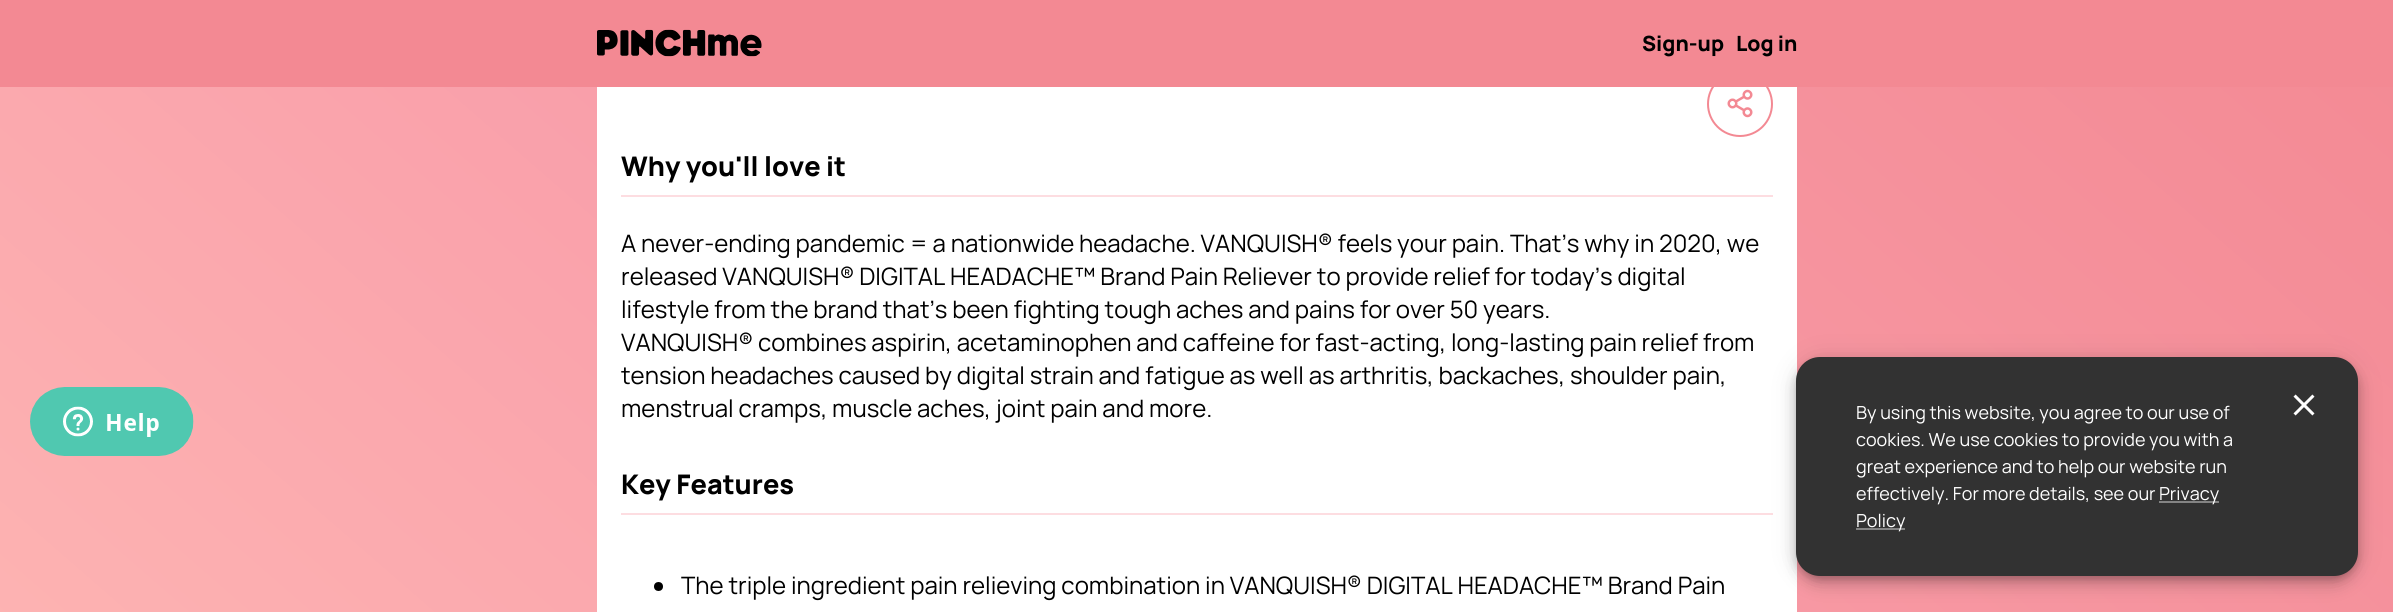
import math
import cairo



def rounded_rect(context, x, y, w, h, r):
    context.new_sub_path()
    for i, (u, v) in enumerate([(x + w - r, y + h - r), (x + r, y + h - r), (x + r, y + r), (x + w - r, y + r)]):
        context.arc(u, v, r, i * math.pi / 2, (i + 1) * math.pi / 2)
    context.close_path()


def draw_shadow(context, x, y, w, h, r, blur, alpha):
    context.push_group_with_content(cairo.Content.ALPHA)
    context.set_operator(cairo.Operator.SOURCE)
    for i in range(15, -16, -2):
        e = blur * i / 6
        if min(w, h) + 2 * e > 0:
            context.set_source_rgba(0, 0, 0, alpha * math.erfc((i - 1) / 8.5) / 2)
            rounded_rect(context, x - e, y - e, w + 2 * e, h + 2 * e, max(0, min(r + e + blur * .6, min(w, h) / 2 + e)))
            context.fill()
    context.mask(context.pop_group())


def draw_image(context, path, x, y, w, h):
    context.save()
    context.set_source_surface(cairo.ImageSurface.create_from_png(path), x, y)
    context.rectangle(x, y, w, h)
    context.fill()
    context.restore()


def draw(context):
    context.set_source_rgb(1, 1, 1)
    context.paint()
    gradient = cairo.LinearGradient(2186, -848, 208, 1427)
    gradient.add_color_stop_rgba(0.16, 243 / 255, 137 / 255, 147 / 255, 1)
    gradient.add_color_stop_rgba(0.58, 249 / 255, 159 / 255, 170 / 255, 1)
    gradient.add_color_stop_rgba(0.98, 1, 189 / 255, 182 / 255, 1)
    context.set_source(gradient)
    context.rectangle(0, 87, 2393, 525)
    context.fill()
    draw_image(context, "images/1.png", 30, 387, 164, 69)
    context.set_source_rgb(1, 1, 1)
    context.rectangle(597, 87, 1200, 525)
    context.fill()
    context.arc(1740, 104, 32, 0, 2 * math.pi)
    context.set_source_rgb(243 / 255, 137 / 255, 147 / 255)
    context.stroke()
    context.rectangle(0, 0, 2393, 87)
    context.fill()
    draw_image(context, "images/2.png", 597, 29, 165, 28)
    draw_image(context, "images/3.png", 1727, 89, 26, 29)
    context.set_source_rgb(253 / 255, 221 / 255, 225 / 255)
    context.rectangle(621, 195, 1152, 2)
    context.fill()
    context.rectangle(621, 513, 1152, 2)
    context.fill()
    context.set_source_rgb(0, 0, 0)
    context.arc(658.5, 586.5, 4.5, 0, 2 * math.pi)
    context.fill()
    context.set_source_rgb(0, 0, 0)
    draw_shadow(context, 1796, 359, 562, 219, 24, 13.5, 0.12)
    draw_shadow(context, 1796, 366, 562, 219, 24, 7.5, 0.14)
    draw_shadow(context, 1797, 363, 560, 216, 23, 4, 0.2)
    context.set_source_rgb(50 / 255, 50 / 255, 50 / 255)
    rounded_rect(context, 1796, 357, 562, 219, 24)
    context.fill()
    context.set_source_rgb(132 / 255, 132 / 255, 132 / 255)
    context.rectangle(2159, 501, 60, 2)
    context.fill()
    context.rectangle(1856, 528, 49, 2)
    context.fill()
    draw_image(context, "images/4.png", 2293, 394, 22, 22)
    context.select_font_face("Manrope ExtraBold")
    context.set_font_size(21)
    context.set_source_rgb(0, 0, 0)
    context.move_to(1642, 51)
    context.show_text("Sign-up")
    context.move_to(1736, 51)
    context.show_text("Log in")
    context.set_font_size(27)
    context.move_to(621, 176)
    context.show_text("Why you'll love it")
    context.select_font_face("Manrope")
    context.set_font_size(24)
    context.move_to(621, 252)
    context.show_text("A never-ending pandemic = a nationwide headache. VANQUISH® feels your pain. That’s why in 2020, we")
    context.move_to(621, 285)
    context.show_text("released VANQUISH® DIGITAL HEADACHE™ Brand Pain Reliever to provide relief for today’s digital")
    context.move_to(621, 318)
    context.show_text("lifestyle from the brand that’s been fighting tough aches and pains for over 50 years.")
    context.move_to(621, 351)
    context.show_text("VANQUISH® combines aspirin, acetaminophen and caffeine for fast-acting, long-lasting pain relief from")
    context.move_to(621, 384)
    context.show_text("tension headaches caused by digital strain and fatigue as well as arthritis, backaches, shoulder pain,")
    context.move_to(621, 417)
    context.show_text("menstrual cramps, muscle aches, joint pain and more.")
    context.select_font_face("Manrope ExtraBold")
    context.set_font_size(27)
    context.move_to(621, 494)
    context.show_text("Key Features")
    context.select_font_face("Manrope")
    context.set_font_size(24)
    context.move_to(681, 594)
    context.show_text("The triple ingredient pain relieving combination in VANQUISH® DIGITAL HEADACHE™ Brand Pain")
    context.set_font_size(18)
    context.set_source_rgb(1, 1, 1)
    context.move_to(1856, 419)
    context.show_text("By using this website, you agree to our use of")
    context.move_to(1856, 446)
    context.show_text("cookies. We use cookies to provide you with a")
    context.move_to(1856, 473)
    context.show_text("great experience and to help our website run")
    context.move_to(1856, 500)
    context.show_text("effectively. For more details, see our")
    context.move_to(2159, 500)
    context.show_text("Privacy")
    context.move_to(1856, 527)
    context.show_text("Policy")


surface = cairo.ImageSurface(cairo.Format.RGB24, 2393, 612)
context = cairo.Context(surface)
options = cairo.FontOptions()
options.set_hint_metrics(cairo.HintMetrics.OFF)
options.set_hint_style(cairo.HintStyle.NONE)
context.set_font_options(options)
context.set_miter_limit(4)
draw(context)
surface.write_to_png("out.png")
